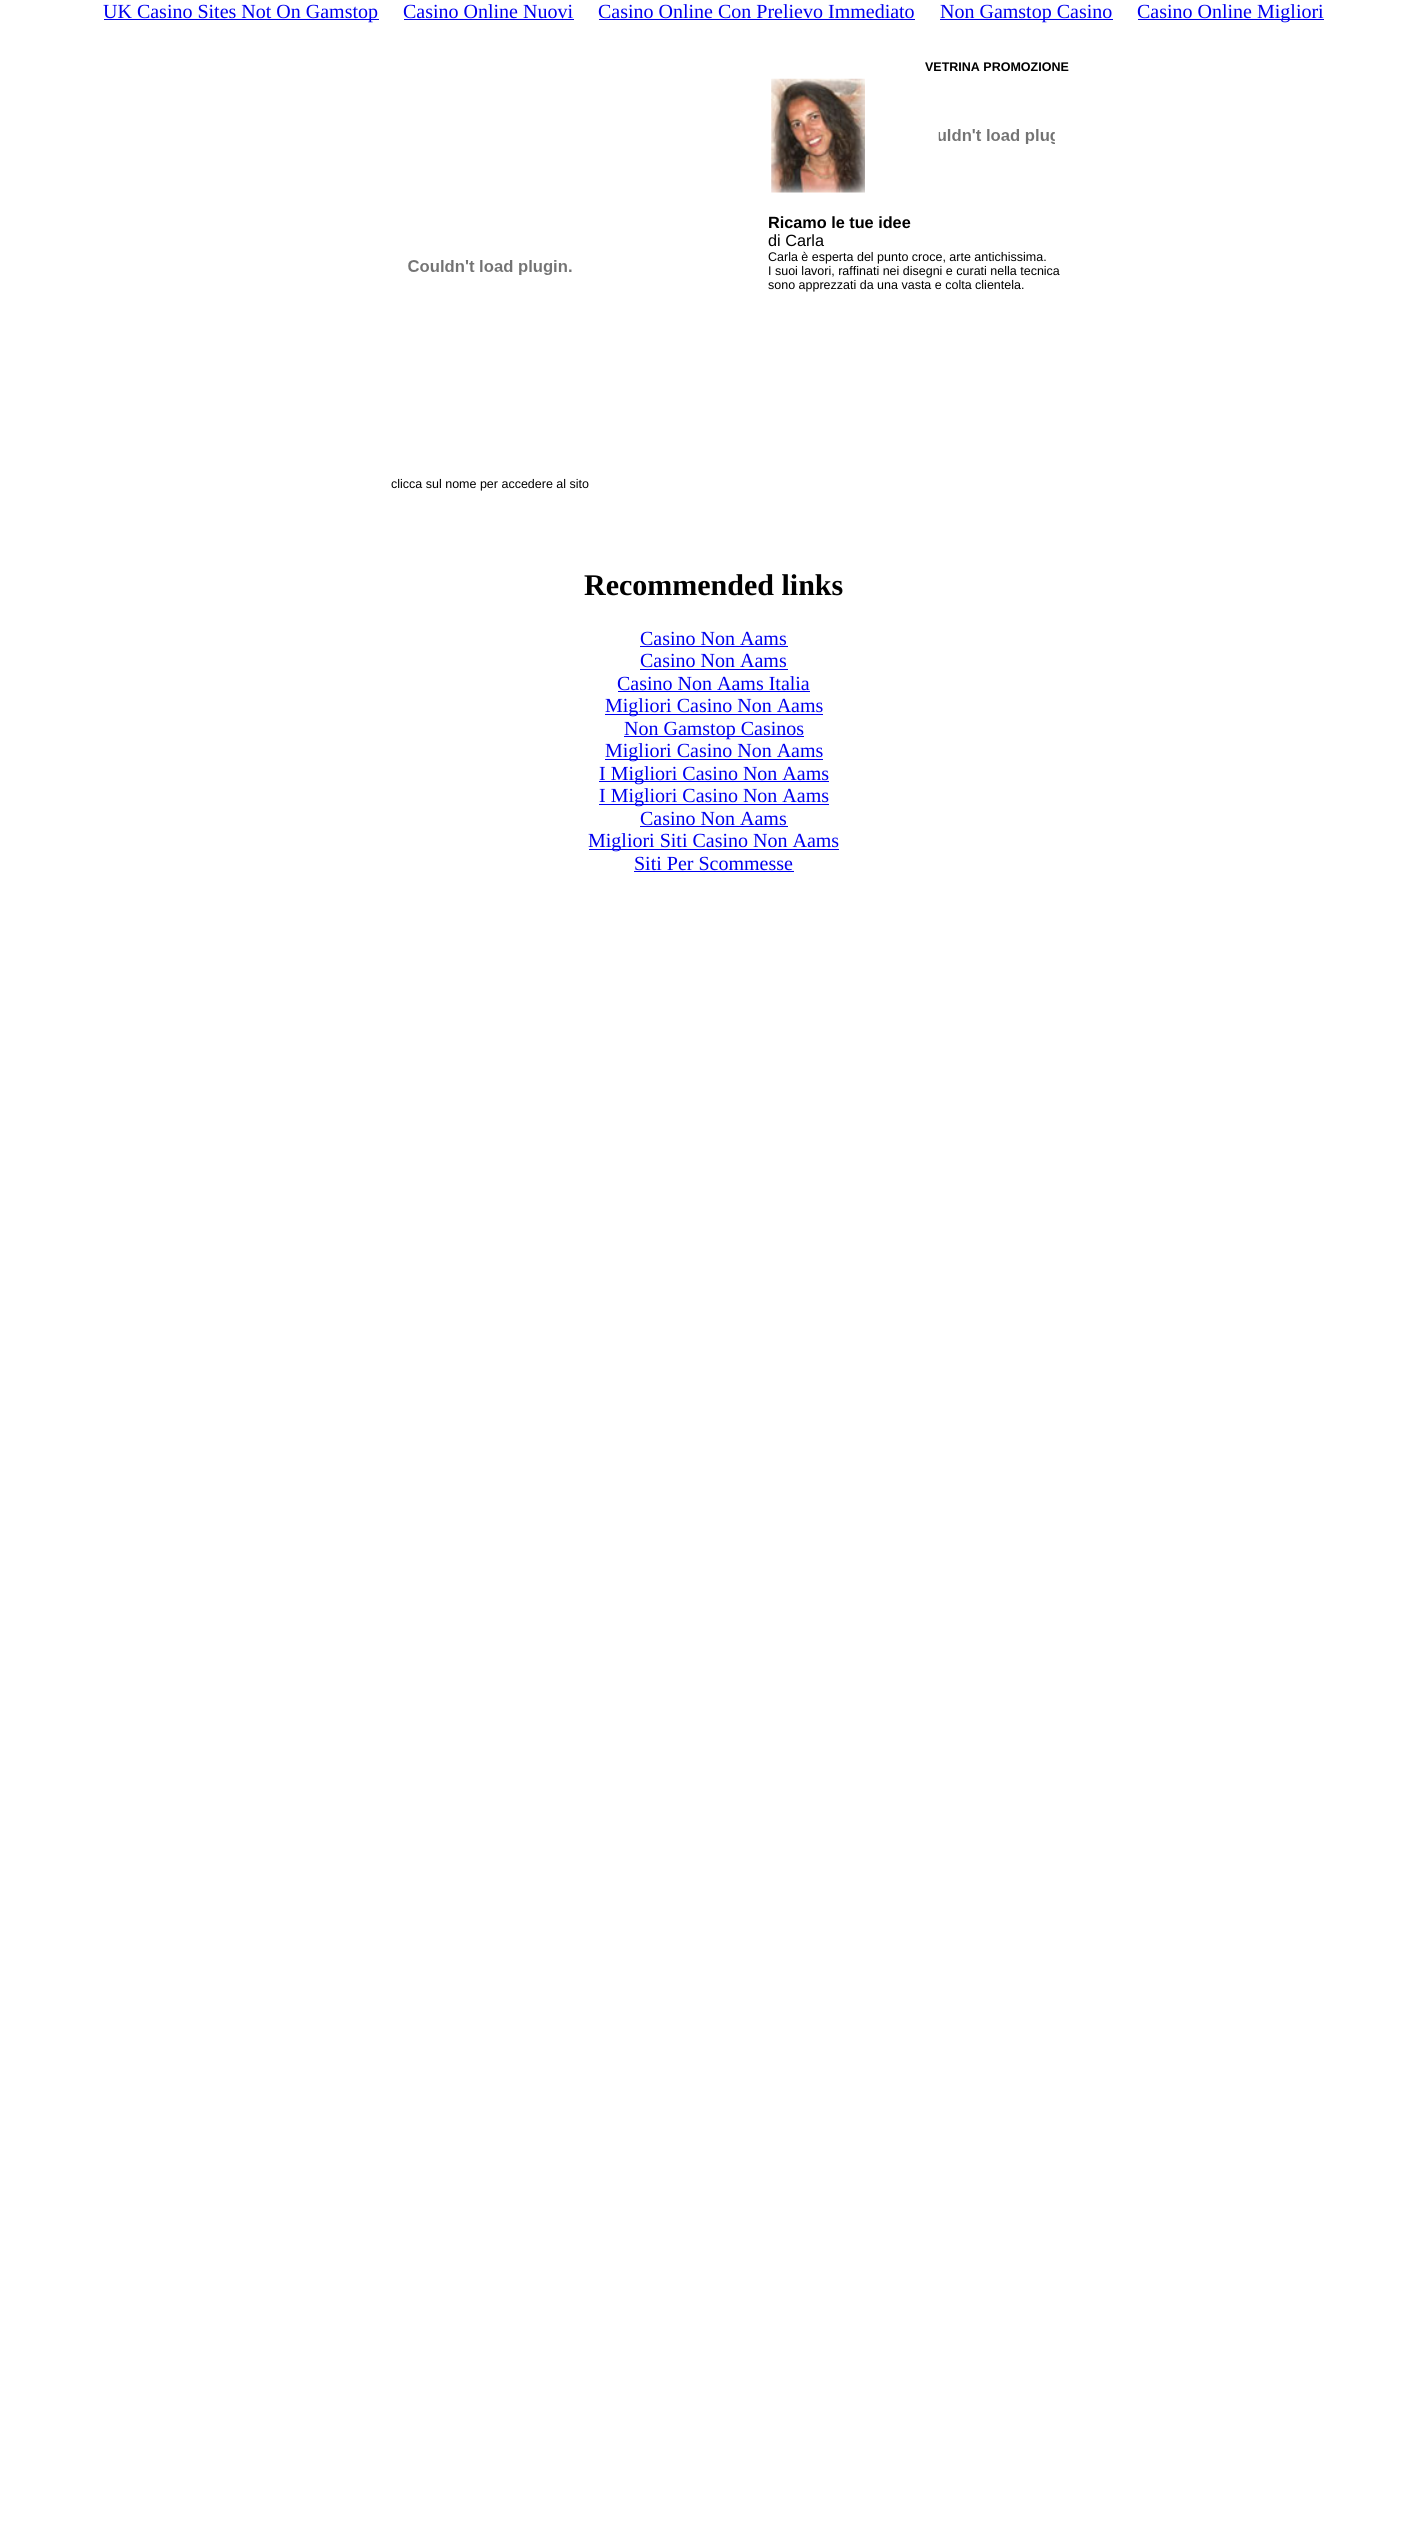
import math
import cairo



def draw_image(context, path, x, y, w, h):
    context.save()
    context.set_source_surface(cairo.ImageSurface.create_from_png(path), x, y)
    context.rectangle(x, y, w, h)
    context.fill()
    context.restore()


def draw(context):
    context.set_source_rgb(1, 1, 1)
    context.paint()
    context.set_source_rgb(0, 0, 238 / 255)
    context.rectangle(104, 19, 275, 1)
    context.fill()
    context.rectangle(404, 19, 170, 1)
    context.fill()
    context.rectangle(599, 19, 316, 1)
    context.fill()
    context.rectangle(940, 19, 173, 1)
    context.fill()
    context.rectangle(1138, 19, 186, 1)
    context.fill()
    draw_image(context, "images/1.png", 771, 78, 94, 115)
    draw_image(context, "images/2.png", 938, 129, 117, 15)
    draw_image(context, "images/3.png", 408, 260, 164, 15)
    context.rectangle(640, 646, 148, 1)
    context.fill()
    context.rectangle(640, 669, 148, 1)
    context.fill()
    context.rectangle(618, 691, 192, 1)
    context.fill()
    context.rectangle(605, 714, 218, 1)
    context.fill()
    context.rectangle(624, 736, 180, 1)
    context.fill()
    context.rectangle(605, 759, 218, 1)
    context.fill()
    context.rectangle(599, 781, 230, 1)
    context.fill()
    context.rectangle(599, 804, 230, 1)
    context.fill()
    context.rectangle(640, 826, 148, 1)
    context.fill()
    context.rectangle(589, 849, 250, 1)
    context.fill()
    context.rectangle(634, 871, 160, 1)
    context.fill()
    context.select_font_face("Liberation Serif")
    context.set_font_size(20)
    context.move_to(103, 18)
    context.show_text("UK Casino Sites Not On Gamstop")
    context.move_to(403, 18)
    context.show_text("Casino Online Nuovi")
    context.move_to(598, 18)
    context.show_text("Casino Online Con Prelievo Immediato")
    context.move_to(940, 18)
    context.show_text("Non Gamstop Casino")
    context.move_to(1137, 18)
    context.show_text("Casino Online Migliori")
    context.select_font_face("Liberation Sans", cairo.FontSlant.NORMAL, cairo.FontWeight.BOLD)
    context.set_font_size(12.5)
    context.set_source_rgb(0, 0, 0)
    context.move_to(925, 71)
    context.show_text("VETRINA PROMOZIONE")
    context.set_font_size(16.25)
    context.move_to(768, 228)
    context.show_text("Ricamo le tue idee")
    context.select_font_face("Liberation Sans")
    context.move_to(768, 246)
    context.show_text("di Carla")
    context.set_font_size(12.5)
    context.move_to(768, 261)
    context.show_text("Carla è esperta del punto croce, arte antichissima.")
    context.move_to(768, 275)
    context.show_text("I suoi lavori, raffinati nei disegni e curati nella tecnica")
    context.move_to(768, 289)
    context.show_text("sono apprezzati da una vasta e colta clientela.")
    context.move_to(391, 488)
    context.show_text("clicca sul nome per accedere al sito")
    context.select_font_face("Liberation Serif", cairo.FontSlant.NORMAL, cairo.FontWeight.BOLD)
    context.set_font_size(30)
    context.move_to(584, 595)
    context.show_text("Recommended links")
    context.select_font_face("Liberation Serif")
    context.set_font_size(20)
    context.set_source_rgb(0, 0, 238 / 255)
    context.move_to(640, 645)
    context.show_text("Casino Non Aams")
    context.move_to(640, 667)
    context.show_text("Casino Non Aams")
    context.move_to(617, 690)
    context.show_text("Casino Non Aams Italia")
    context.move_to(605, 712)
    context.show_text("Migliori Casino Non Aams")
    context.move_to(624, 735)
    context.show_text("Non Gamstop Casinos")
    context.move_to(605, 757)
    context.show_text("Migliori Casino Non Aams")
    context.move_to(599, 780)
    context.show_text("I Migliori Casino Non Aams")
    context.move_to(599, 802)
    context.show_text("I Migliori Casino Non Aams")
    context.move_to(640, 825)
    context.show_text("Casino Non Aams")
    context.move_to(588, 847)
    context.show_text("Migliori Siti Casino Non Aams")
    context.move_to(634, 870)
    context.show_text("Siti Per Scommesse")


surface = cairo.ImageSurface(cairo.Format.RGB24, 1427, 2540)
context = cairo.Context(surface)
options = cairo.FontOptions()
options.set_hint_metrics(cairo.HintMetrics.OFF)
options.set_hint_style(cairo.HintStyle.NONE)
context.set_font_options(options)
context.set_miter_limit(4)
draw(context)
surface.write_to_png("out.png")
